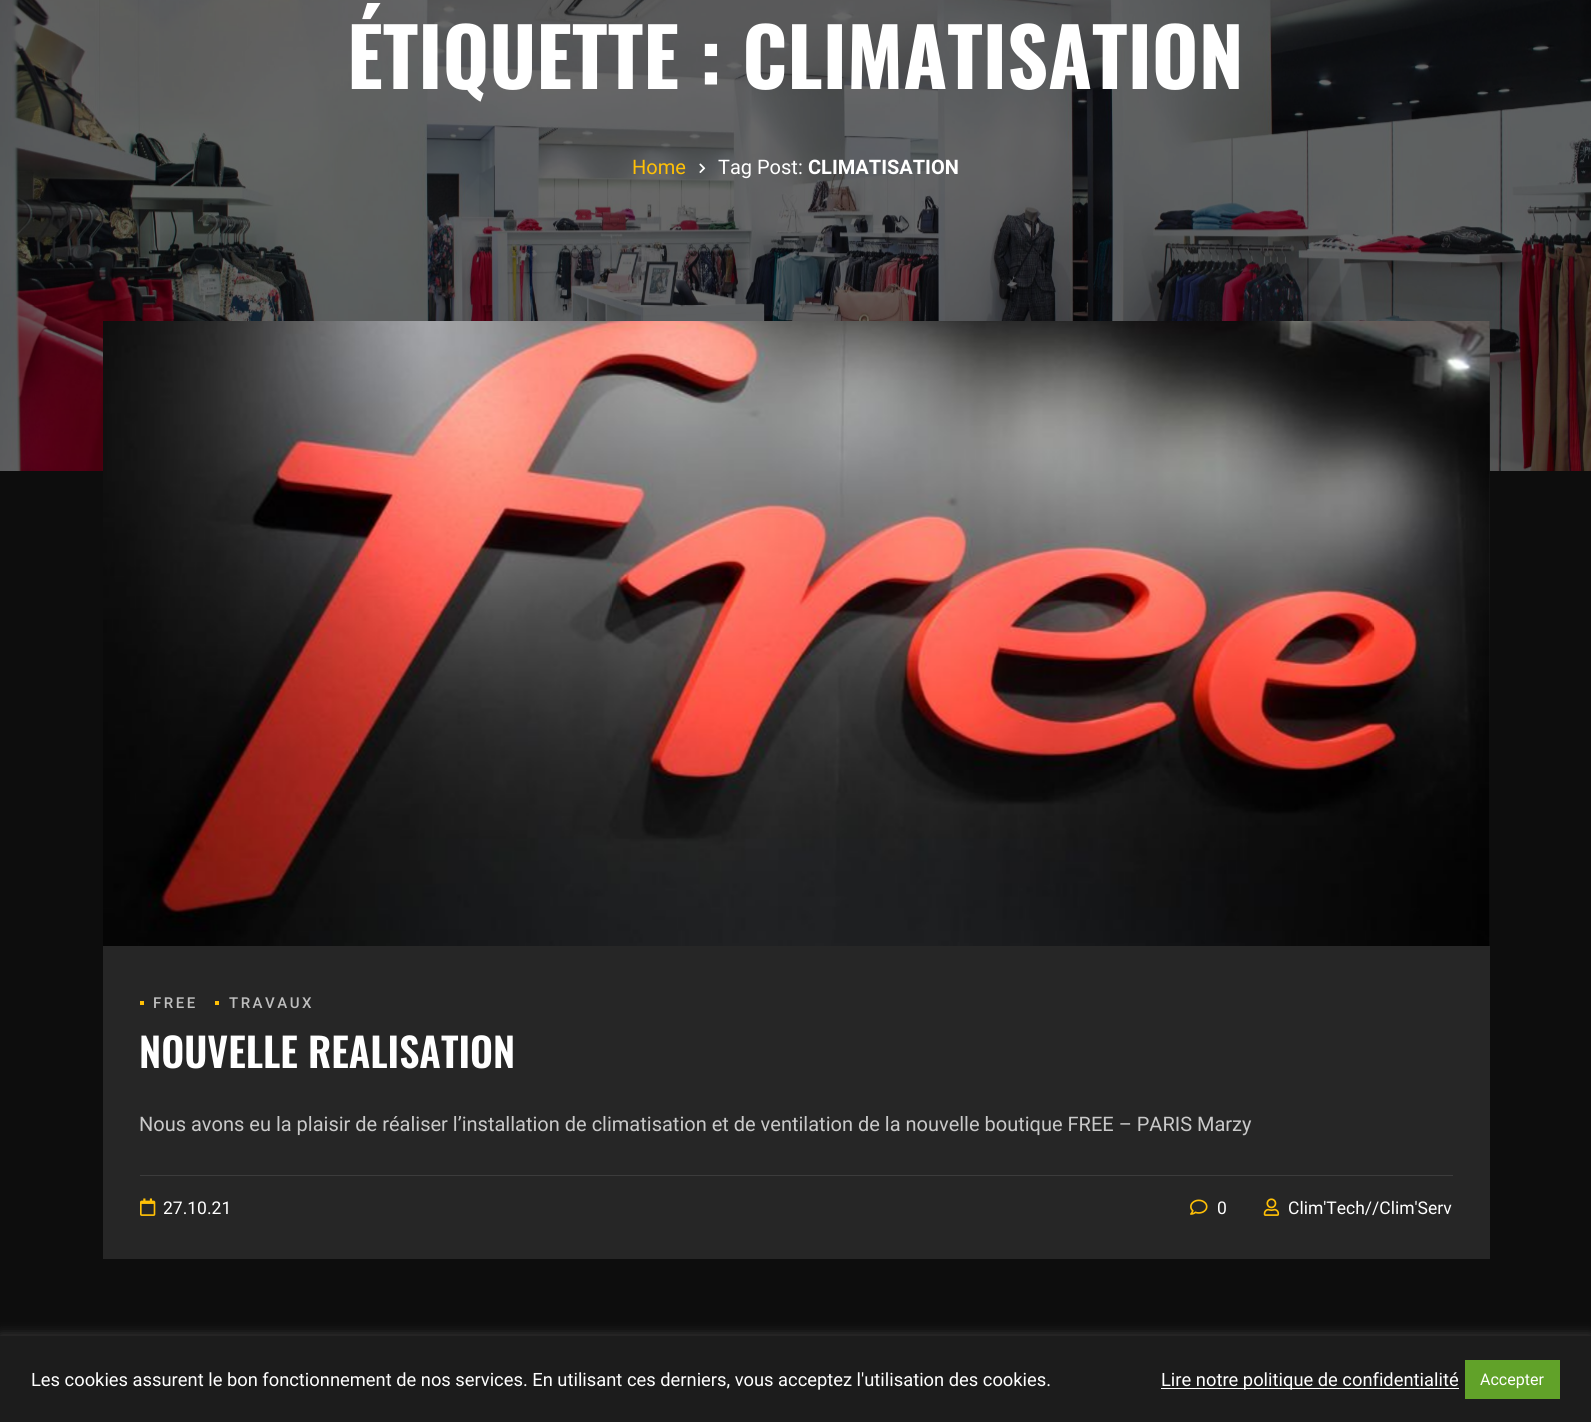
import math
import cairo



def draw_spaced(context, x, y, s, letter, word):
    context.move_to(x, y)
    for ch in s:
        context.show_text(ch)
        context.rel_move_to(letter + word * (ch == ' '), 0)


def rounded_rect(context, x, y, w, h, r):
    context.new_sub_path()
    for i, (u, v) in enumerate([(x + w - r, y + h - r), (x + r, y + h - r), (x + r, y + r), (x + w - r, y + r)]):
        context.arc(u, v, r, i * math.pi / 2, (i + 1) * math.pi / 2)
    context.close_path()


def draw_shadow(context, x, y, w, h, r, blur, alpha):
    context.push_group_with_content(cairo.Content.ALPHA)
    context.set_operator(cairo.Operator.SOURCE)
    for i in range(15, -16, -2):
        e = blur * i / 6
        if min(w, h) + 2 * e > 0:
            context.set_source_rgba(0, 0, 0, alpha * math.erfc((i - 1) / 8.5) / 2)
            rounded_rect(context, x - e, y - e, w + 2 * e, h + 2 * e, max(0, min(r + e + blur * .6, min(w, h) / 2 + e)))
            context.fill()
    context.mask(context.pop_group())


def draw_image(context, path, x, y, w, h):
    context.save()
    context.set_source_surface(cairo.ImageSurface.create_from_png(path), x, y)
    context.rectangle(x, y, w, h)
    context.fill()
    context.restore()


def draw(context):
    context.set_source_rgb(13 / 255, 13 / 255, 13 / 255)
    context.paint()
    draw_image(context, "images/1.png", 0, 0, 1591, 471)
    draw_image(context, "images/2.png", 699, 163, 7, 10)
    context.set_source_rgb(38 / 255, 38 / 255, 38 / 255)
    context.rectangle(103, 321, 1387, 938)
    context.fill()
    draw_image(context, "images/3.png", 103, 321, 1387, 625)
    context.set_source_rgb(1, 192 / 255, 6 / 255)
    context.rectangle(140, 1001, 4, 4)
    context.fill()
    context.rectangle(215, 1001, 4, 4)
    context.fill()
    context.set_source_rgb(60 / 255, 60 / 255, 60 / 255)
    context.rectangle(140, 1175, 1313, 1)
    context.fill()
    draw_image(context, "images/4.png", 140, 1198, 16, 18)
    draw_image(context, "images/5.png", 1190, 1199, 18, 16)
    draw_image(context, "images/6.png", 1263, 1198, 17, 18)
    context.set_source_rgb(172 / 255, 171 / 255, 171 / 255)
    draw_shadow(context, 0, 1335, 1591, 86, 0, 6, 0.3)
    context.set_source_rgb(28 / 255, 28 / 255, 28 / 255)
    context.rectangle(0, 1336, 1591, 86)
    context.fill()
    context.set_source_rgb(1, 1, 1)
    context.rectangle(1161, 1388, 298, 1)
    context.fill()
    context.set_source_rgb(97 / 255, 162 / 255, 41 / 255)
    context.rectangle(1465, 1360, 95, 39)
    context.fill()
    context.select_font_face("Oswald", cairo.FontSlant.NORMAL, cairo.FontWeight.BOLD)
    context.set_font_size(80)
    context.set_source_rgb(1, 1, 1)
    context.move_to(347, 89)
    context.show_text("ÉTIQUETTE : CLIMATISATION")
    context.select_font_face("Roboto")
    context.set_font_size(20)
    context.set_source_rgb(1, 192 / 255, 6 / 255)
    context.move_to(632, 174)
    context.show_text("Home")
    context.set_source_rgb(1, 1, 1)
    context.move_to(718, 174)
    context.show_text("Tag Post:")
    context.select_font_face("Roboto", cairo.FontSlant.NORMAL, cairo.FontWeight.BOLD)
    context.move_to(808, 174)
    context.show_text("CLIMATISATION")
    context.select_font_face("Roboto Medium")
    context.set_font_size(15)
    context.set_source_rgb(190 / 255, 190 / 255, 190 / 255)
    draw_spaced(context, 153, 1008, "FREE", 2.5, 0)
    draw_spaced(context, 229, 1008, "TRAVAUX", 2.5, 0)
    context.select_font_face("Oswald SemiBold")
    context.set_font_size(40)
    context.set_source_rgb(1, 1, 1)
    context.move_to(139, 1068)
    context.show_text("NOUVELLE REALISATION")
    context.select_font_face("Roboto")
    context.set_font_size(20)
    context.set_source_rgb(201 / 255, 201 / 255, 201 / 255)
    context.move_to(139, 1131)
    context.show_text("Nous avons eu la plaisir de réaliser l’installation de climatisation et de ventilation de la nouvelle boutique FREE – PARIS Marzy")
    context.set_font_size(17.5)
    context.set_source_rgb(1, 1, 1)
    context.move_to(163, 1214)
    context.show_text("27.10.21")
    context.move_to(1217, 1214)
    context.show_text("0")
    context.move_to(1288, 1214)
    context.show_text("Clim'Tech//Clim'Serv")
    context.set_font_size(18.33)
    context.move_to(31, 1386)
    context.show_text("Les cookies assurent le bon fonctionnement de nos services. En utilisant ces derniers, vous acceptez l'utilisation des cookies.")
    context.move_to(1161, 1386)
    context.show_text("Lire notre politique de confidentialité")
    context.set_font_size(16)
    context.move_to(1480, 1385)
    context.show_text("Accepter")


surface = cairo.ImageSurface(cairo.Format.RGB24, 1591, 1422)
context = cairo.Context(surface)
options = cairo.FontOptions()
options.set_hint_metrics(cairo.HintMetrics.OFF)
options.set_hint_style(cairo.HintStyle.NONE)
context.set_font_options(options)
context.set_miter_limit(4)
draw(context)
surface.write_to_png("out.png")
